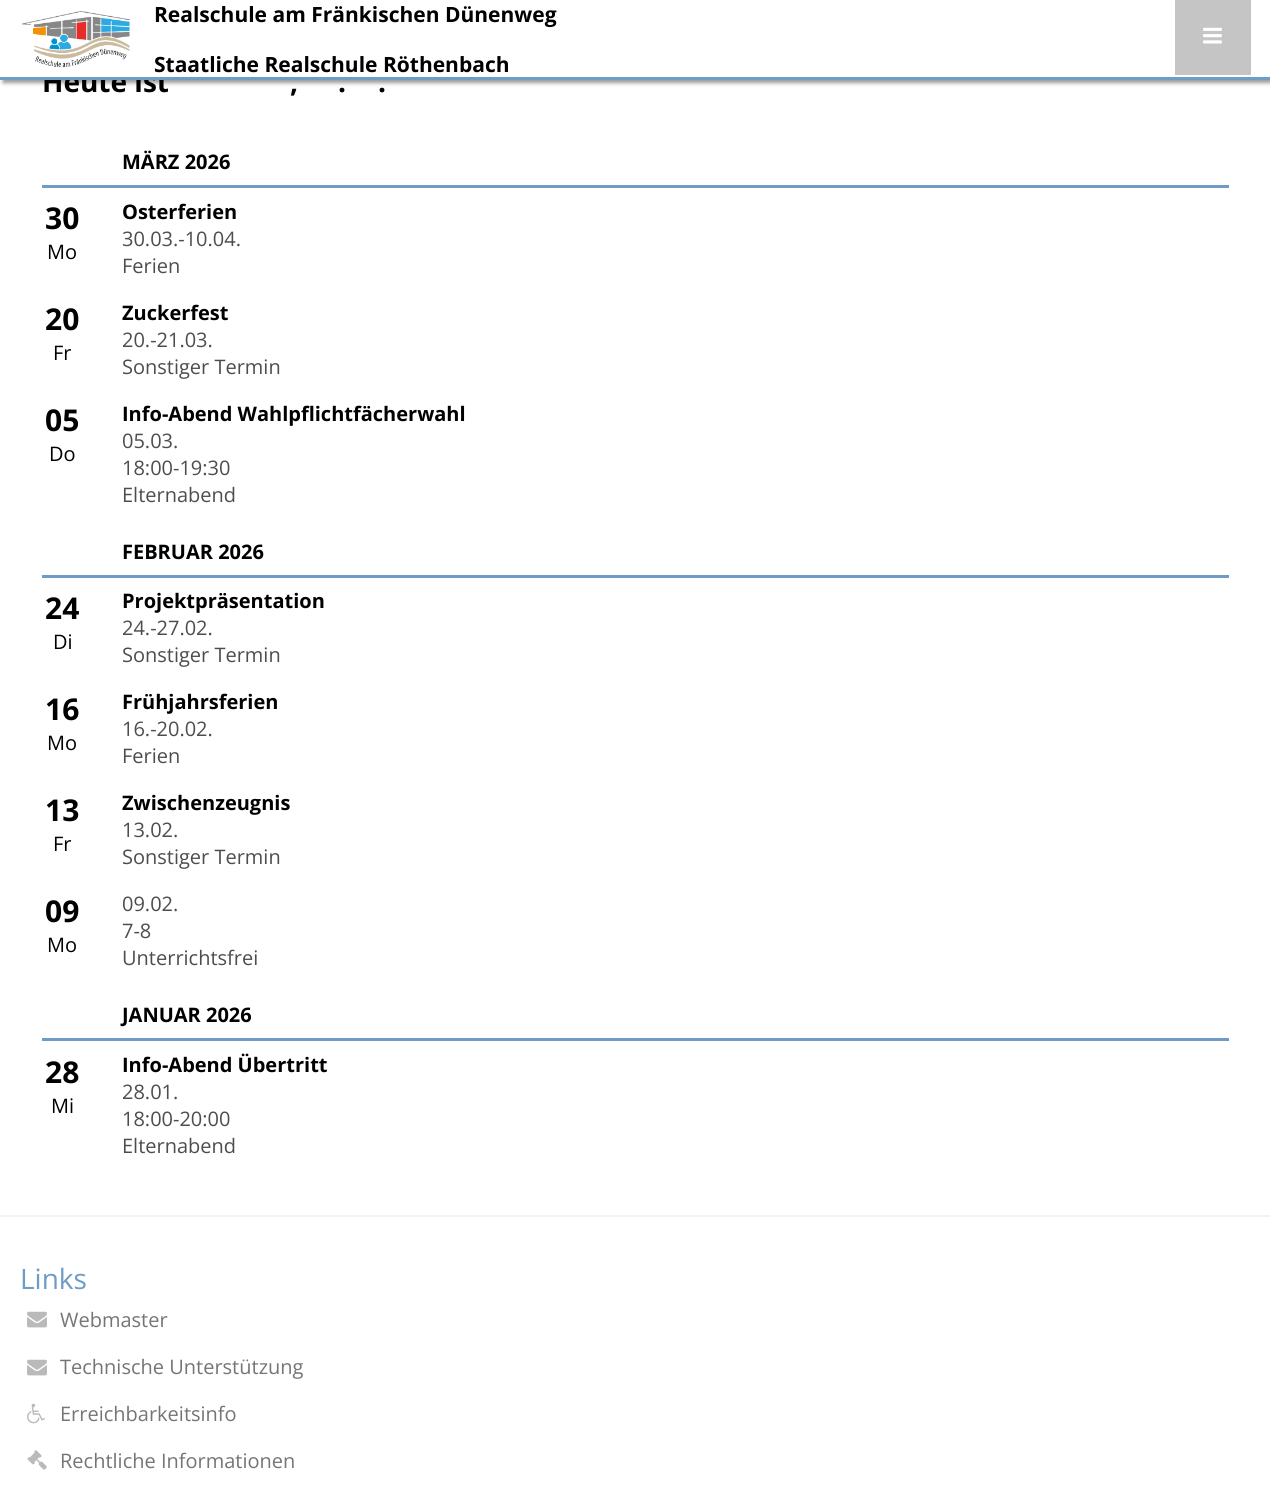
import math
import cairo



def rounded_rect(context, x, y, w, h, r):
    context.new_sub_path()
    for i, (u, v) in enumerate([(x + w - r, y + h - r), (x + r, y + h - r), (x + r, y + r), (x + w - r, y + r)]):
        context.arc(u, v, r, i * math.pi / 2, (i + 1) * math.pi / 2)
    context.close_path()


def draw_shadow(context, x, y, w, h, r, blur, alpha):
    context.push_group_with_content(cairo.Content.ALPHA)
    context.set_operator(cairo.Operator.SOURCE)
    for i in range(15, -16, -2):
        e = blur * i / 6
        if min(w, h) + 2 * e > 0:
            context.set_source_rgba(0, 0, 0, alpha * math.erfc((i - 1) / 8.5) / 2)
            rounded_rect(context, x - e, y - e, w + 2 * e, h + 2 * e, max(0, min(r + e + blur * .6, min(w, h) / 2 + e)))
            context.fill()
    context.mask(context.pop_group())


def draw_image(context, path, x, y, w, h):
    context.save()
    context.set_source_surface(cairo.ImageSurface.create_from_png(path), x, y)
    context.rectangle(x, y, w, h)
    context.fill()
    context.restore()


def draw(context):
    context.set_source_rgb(1, 1, 1)
    context.paint()
    context.set_source_rgb(0, 0, 0)
    draw_shadow(context, 3, 3, 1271, 80, 0, 2, 0.4)
    context.set_source_rgb(109 / 255, 156 / 255, 198 / 255)
    context.rectangle(42, 185, 1187, 3)
    context.fill()
    context.rectangle(42, 575, 1187, 3)
    context.fill()
    context.rectangle(42, 1038, 1187, 3)
    context.fill()
    context.set_source_rgb(243 / 255, 243 / 255, 243 / 255)
    context.rectangle(0, 1215, 1270, 2)
    context.fill()
    draw_image(context, "images/3.png", 27, 1311, 20, 17)
    draw_image(context, "images/3.png", 27, 1359, 20, 17)
    draw_image(context, "images/4.png", 27, 1403, 18, 21)
    draw_image(context, "images/5.png", 27, 1450, 20, 20)
    context.select_font_face("Open Sans", cairo.FontSlant.NORMAL, cairo.FontWeight.BOLD)
    context.set_font_size(28)
    context.set_source_rgb(0, 0, 0)
    context.move_to(42, 92)
    context.show_text("Heute ist")
    context.set_source_rgb(1, 1, 1)
    context.rectangle(0, 0, 1270, 77)
    context.fill()
    context.set_source_rgb(197 / 255, 197 / 255, 197 / 255)
    context.rectangle(1175, 0, 76, 75)
    context.fill()
    draw_image(context, "images/2.png", 1203, 27, 19, 17)
    context.set_font_size(21)
    context.set_source_rgb(0, 0, 0)
    context.move_to(154, 72)
    context.show_text("Staatliche Realschule Röthenbach")
    context.move_to(154, 22)
    context.show_text("Realschule am Fränkischen Dünenweg")
    draw_image(context, "images/1.png", 21, 11, 109, 57)
    context.set_source_rgb(109 / 255, 156 / 255, 198 / 255)
    context.rectangle(0, 77, 1270, 3)
    context.fill()
    context.set_font_size(28)
    context.set_source_rgb(0, 0, 0)
    context.move_to(290, 92)
    context.show_text(",")
    context.move_to(338, 92)
    context.show_text(".")
    context.move_to(378, 92)
    context.show_text(".")
    context.set_font_size(20)
    context.move_to(122, 169)
    context.show_text("MÄRZ 2026")
    context.set_font_size(30)
    context.move_to(45, 229)
    context.show_text("30")
    context.select_font_face("Open Sans")
    context.set_font_size(20)
    context.move_to(47, 259)
    context.show_text("Mo")
    context.select_font_face("Open Sans", cairo.FontSlant.NORMAL, cairo.FontWeight.BOLD)
    context.move_to(122, 219)
    context.show_text("Osterferien")
    context.select_font_face("Open Sans")
    context.set_source_rgb(77 / 255, 77 / 255, 77 / 255)
    context.move_to(122, 246)
    context.show_text("30.03.-10.04.")
    context.move_to(122, 273)
    context.show_text("Ferien")
    context.select_font_face("Open Sans", cairo.FontSlant.NORMAL, cairo.FontWeight.BOLD)
    context.set_font_size(30)
    context.set_source_rgb(0, 0, 0)
    context.move_to(45, 330)
    context.show_text("20")
    context.select_font_face("Open Sans")
    context.set_font_size(20)
    context.move_to(53, 360)
    context.show_text("Fr")
    context.select_font_face("Open Sans", cairo.FontSlant.NORMAL, cairo.FontWeight.BOLD)
    context.move_to(122, 320)
    context.show_text("Zuckerfest")
    context.select_font_face("Open Sans")
    context.set_source_rgb(77 / 255, 77 / 255, 77 / 255)
    context.move_to(122, 347)
    context.show_text("20.-21.03.")
    context.move_to(122, 374)
    context.show_text("Sonstiger Termin")
    context.select_font_face("Open Sans", cairo.FontSlant.NORMAL, cairo.FontWeight.BOLD)
    context.set_font_size(30)
    context.set_source_rgb(0, 0, 0)
    context.move_to(45, 431)
    context.show_text("05")
    context.select_font_face("Open Sans")
    context.set_font_size(20)
    context.move_to(49, 461)
    context.show_text("Do")
    context.select_font_face("Open Sans", cairo.FontSlant.NORMAL, cairo.FontWeight.BOLD)
    context.move_to(122, 421)
    context.show_text("Info-Abend Wahlpflichtfächerwahl")
    context.select_font_face("Open Sans")
    context.set_source_rgb(77 / 255, 77 / 255, 77 / 255)
    context.move_to(122, 448)
    context.show_text("05.03.")
    context.move_to(122, 475)
    context.show_text("18:00-19:30")
    context.move_to(122, 502)
    context.show_text("Elternabend")
    context.select_font_face("Open Sans", cairo.FontSlant.NORMAL, cairo.FontWeight.BOLD)
    context.set_source_rgb(0, 0, 0)
    context.move_to(122, 559)
    context.show_text("FEBRUAR 2026")
    context.set_font_size(30)
    context.move_to(45, 619)
    context.show_text("24")
    context.select_font_face("Open Sans")
    context.set_font_size(20)
    context.move_to(53, 649)
    context.show_text("Di")
    context.select_font_face("Open Sans", cairo.FontSlant.NORMAL, cairo.FontWeight.BOLD)
    context.move_to(122, 608)
    context.show_text("Projektpräsentation")
    context.select_font_face("Open Sans")
    context.set_source_rgb(77 / 255, 77 / 255, 77 / 255)
    context.move_to(122, 635)
    context.show_text("24.-27.02.")
    context.move_to(122, 662)
    context.show_text("Sonstiger Termin")
    context.select_font_face("Open Sans", cairo.FontSlant.NORMAL, cairo.FontWeight.BOLD)
    context.set_font_size(30)
    context.set_source_rgb(0, 0, 0)
    context.move_to(45, 720)
    context.show_text("16")
    context.select_font_face("Open Sans")
    context.set_font_size(20)
    context.move_to(47, 750)
    context.show_text("Mo")
    context.select_font_face("Open Sans", cairo.FontSlant.NORMAL, cairo.FontWeight.BOLD)
    context.move_to(122, 709)
    context.show_text("Frühjahrsferien")
    context.select_font_face("Open Sans")
    context.set_source_rgb(77 / 255, 77 / 255, 77 / 255)
    context.move_to(122, 736)
    context.show_text("16.-20.02.")
    context.move_to(122, 763)
    context.show_text("Ferien")
    context.select_font_face("Open Sans", cairo.FontSlant.NORMAL, cairo.FontWeight.BOLD)
    context.set_font_size(30)
    context.set_source_rgb(0, 0, 0)
    context.move_to(45, 821)
    context.show_text("13")
    context.select_font_face("Open Sans")
    context.set_font_size(20)
    context.move_to(53, 851)
    context.show_text("Fr")
    context.select_font_face("Open Sans", cairo.FontSlant.NORMAL, cairo.FontWeight.BOLD)
    context.move_to(122, 810)
    context.show_text("Zwischenzeugnis")
    context.select_font_face("Open Sans")
    context.set_source_rgb(77 / 255, 77 / 255, 77 / 255)
    context.move_to(122, 837)
    context.show_text("13.02.")
    context.move_to(122, 864)
    context.show_text("Sonstiger Termin")
    context.select_font_face("Open Sans", cairo.FontSlant.NORMAL, cairo.FontWeight.BOLD)
    context.set_font_size(30)
    context.set_source_rgb(0, 0, 0)
    context.move_to(45, 922)
    context.show_text("09")
    context.select_font_face("Open Sans")
    context.set_font_size(20)
    context.move_to(47, 952)
    context.show_text("Mo")
    context.set_source_rgb(77 / 255, 77 / 255, 77 / 255)
    context.move_to(122, 911)
    context.show_text("09.02.")
    context.move_to(122, 938)
    context.show_text("7-8")
    context.move_to(122, 965)
    context.show_text("Unterrichtsfrei")
    context.select_font_face("Open Sans", cairo.FontSlant.NORMAL, cairo.FontWeight.BOLD)
    context.set_source_rgb(0, 0, 0)
    context.move_to(122, 1022)
    context.show_text("JANUAR 2026")
    context.set_font_size(30)
    context.move_to(45, 1083)
    context.show_text("28")
    context.select_font_face("Open Sans")
    context.set_font_size(20)
    context.move_to(51, 1113)
    context.show_text("Mi")
    context.select_font_face("Open Sans", cairo.FontSlant.NORMAL, cairo.FontWeight.BOLD)
    context.move_to(122, 1072)
    context.show_text("Info-Abend Übertritt")
    context.select_font_face("Open Sans")
    context.set_source_rgb(77 / 255, 77 / 255, 77 / 255)
    context.move_to(122, 1099)
    context.show_text("28.01.")
    context.move_to(122, 1126)
    context.show_text("18:00-20:00")
    context.move_to(122, 1153)
    context.show_text("Elternabend")
    context.set_font_size(28)
    context.set_source_rgb(109 / 255, 156 / 255, 198 / 255)
    context.move_to(20, 1289)
    context.show_text("Links")
    context.set_font_size(20)
    context.set_source_rgb(117 / 255, 117 / 255, 117 / 255)
    context.move_to(60, 1327)
    context.show_text("Webmaster")
    context.move_to(60, 1374)
    context.show_text("Technische Unterstützung")
    context.move_to(60, 1421)
    context.show_text("Erreichbarkeitsinfo")
    context.move_to(60, 1468)
    context.show_text("Rechtliche Informationen")


surface = cairo.ImageSurface(cairo.Format.RGB24, 1270, 1495)
context = cairo.Context(surface)
options = cairo.FontOptions()
options.set_hint_metrics(cairo.HintMetrics.OFF)
options.set_hint_style(cairo.HintStyle.NONE)
context.set_font_options(options)
context.set_miter_limit(4)
draw(context)
surface.write_to_png("out.png")
